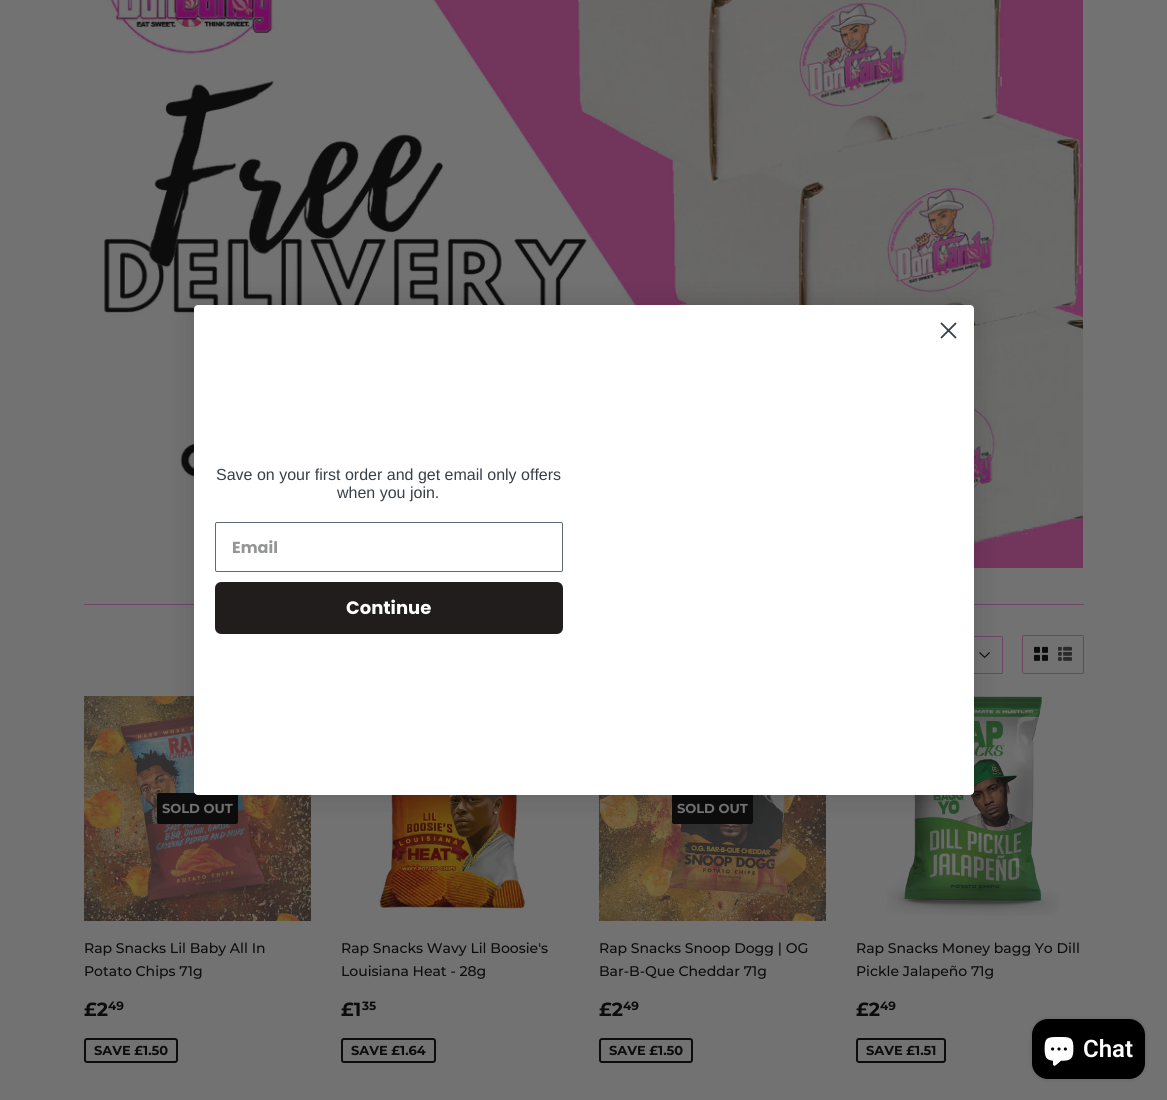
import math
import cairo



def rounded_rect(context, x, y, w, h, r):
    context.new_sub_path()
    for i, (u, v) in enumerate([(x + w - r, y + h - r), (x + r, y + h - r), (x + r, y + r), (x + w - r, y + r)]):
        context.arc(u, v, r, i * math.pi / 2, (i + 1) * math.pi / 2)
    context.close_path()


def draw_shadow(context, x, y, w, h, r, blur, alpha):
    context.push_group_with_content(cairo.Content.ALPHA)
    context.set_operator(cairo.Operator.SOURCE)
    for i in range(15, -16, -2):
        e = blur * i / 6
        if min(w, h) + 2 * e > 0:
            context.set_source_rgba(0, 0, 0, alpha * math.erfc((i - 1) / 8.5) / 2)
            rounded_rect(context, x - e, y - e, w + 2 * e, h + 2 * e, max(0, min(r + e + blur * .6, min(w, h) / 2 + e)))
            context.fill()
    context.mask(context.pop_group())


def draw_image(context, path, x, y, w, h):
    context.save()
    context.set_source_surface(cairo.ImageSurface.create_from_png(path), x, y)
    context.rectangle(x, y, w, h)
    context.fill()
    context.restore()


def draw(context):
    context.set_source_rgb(114 / 255, 114 / 255, 114 / 255)
    context.paint()
    draw_image(context, "images/1.png", 104, 0, 979, 568)
    context.set_source_rgb(110 / 255, 69 / 255, 100 / 255)
    context.rectangle(84, 604, 1000, 1)
    context.fill()
    draw_image(context, "images/2.png", 979, 652, 11, 6)
    rounded_rect(context, 829.5, 636.5, 173, 37, 1.5)
    context.set_line_width(1)
    context.stroke()
    draw_image(context, "images/5.png", 84, 696, 227, 225)
    context.set_source_rgb(12 / 255, 12 / 255, 12 / 255)
    rounded_rect(context, 157, 793, 81, 31, 2)
    context.fill()
    draw_image(context, "images/6.png", 379, 795, 149, 117)
    draw_image(context, "images/7.png", 599, 795, 227, 126)
    rounded_rect(context, 672, 793, 81, 31, 2)
    context.fill()
    draw_image(context, "images/8.png", 887, 696, 173, 220)
    context.set_source_rgb(0, 0, 0)
    draw_shadow(context, 194, 305, 780, 490, 4, 15, 0.15)
    context.set_source_rgb(1, 1, 1)
    rounded_rect(context, 194, 305, 780, 490, 4)
    context.fill()
    context.new_path()
    context.move_to(941.5, 323.5)
    context.line_to(955.5, 337.5)
    context.move_to(941.5, 337.5)
    context.line_to(955.5, 323.5)
    context.close_path()
    context.set_source_rgb(55 / 255, 63 / 255, 71 / 255)
    context.set_line_width(1.8)
    context.set_line_cap(cairo.LineCap.ROUND)
    context.set_line_join(cairo.LineJoin.ROUND)
    context.stroke()
    rounded_rect(context, 215.5, 522.5, 347, 49, 1.5)
    context.set_source_rgb(96 / 255, 106 / 255, 114 / 255)
    context.set_line_width(1)
    context.set_line_cap(cairo.LineCap.BUTT)
    context.set_line_join(cairo.LineJoin.MITER)
    context.stroke()
    context.set_source_rgb(33 / 255, 29 / 255, 28 / 255)
    rounded_rect(context, 218, 585, 342, 46, 3)
    context.fill_preserve()
    context.set_line_width(6)
    context.stroke()
    rounded_rect(context, 1022.5, 635.5, 61, 38, 1.5)
    context.set_source_rgb(110 / 255, 69 / 255, 100 / 255)
    context.set_line_width(1)
    context.stroke()
    draw_image(context, "images/3.png", 1034, 646, 14, 15)
    draw_image(context, "images/4.png", 1058, 646, 14, 15)
    rounded_rect(context, 85, 1039, 92, 23, 2)
    context.set_source_rgb(12 / 255, 12 / 255, 12 / 255)
    context.set_line_width(2)
    context.stroke()
    rounded_rect(context, 342, 1039, 93, 23, 2)
    context.stroke()
    rounded_rect(context, 600, 1039, 92, 23, 2)
    context.stroke()
    rounded_rect(context, 857, 1039, 88, 23, 2)
    context.stroke()
    context.set_source_rgb(0, 0, 0)
    draw_shadow(context, 1032, 1019, 113, 60, 16, 2.5, 0.15)
    context.set_source_rgb(0, 0, 0)
    rounded_rect(context, 1032, 1019, 113, 60, 16)
    context.fill()
    draw_image(context, "images/9.png", 1044, 1037, 30, 29)
    context.select_font_face("Liberation Sans")
    context.set_font_size(16)
    context.set_source_rgb(55 / 255, 63 / 255, 71 / 255)
    context.move_to(216, 480)
    context.show_text("Save on your first order and get email only offers")
    context.move_to(337, 498)
    context.show_text("when you join.")
    context.select_font_face("Poppins", cairo.FontSlant.NORMAL, cairo.FontWeight.BOLD)
    context.set_source_rgb(148 / 255, 149 / 255, 150 / 255)
    context.move_to(232, 553)
    context.show_text("Email")
    context.set_font_size(18)
    context.set_source_rgb(1, 1, 1)
    context.move_to(346, 614)
    context.show_text("Continue")
    context.select_font_face("Montserrat", cairo.FontSlant.NORMAL, cairo.FontWeight.BOLD)
    context.set_font_size(13)
    context.set_source_rgb(114 / 255, 114 / 255, 114 / 255)
    context.move_to(162, 813)
    context.show_text("SOLD OUT")
    context.select_font_face("Montserrat Medium")
    context.set_font_size(14)
    context.set_source_rgb(12 / 255, 12 / 255, 12 / 255)
    context.move_to(84, 953)
    context.show_text("Rap Snacks Lil Baby All In")
    context.move_to(84, 976)
    context.show_text("Potato Chips 71g")
    context.select_font_face("Montserrat", cairo.FontSlant.NORMAL, cairo.FontWeight.BOLD)
    context.set_font_size(19)
    context.move_to(84, 1016)
    context.show_text("£2")
    context.set_font_size(12)
    context.move_to(108, 1010)
    context.show_text("49")
    context.set_font_size(13)
    context.move_to(94, 1055)
    context.show_text("SAVE £1.50")
    context.select_font_face("Montserrat Medium")
    context.set_font_size(14)
    context.move_to(341, 953)
    context.show_text("Rap Snacks Wavy Lil Boosie's")
    context.move_to(341, 976)
    context.show_text("Louisiana Heat - 28g")
    context.select_font_face("Montserrat", cairo.FontSlant.NORMAL, cairo.FontWeight.BOLD)
    context.set_font_size(19)
    context.move_to(341, 1016)
    context.show_text("£1")
    context.set_font_size(12)
    context.move_to(362, 1010)
    context.show_text("35")
    context.set_font_size(13)
    context.move_to(351, 1055)
    context.show_text("SAVE £1.64")
    context.set_source_rgb(114 / 255, 114 / 255, 114 / 255)
    context.move_to(677, 813)
    context.show_text("SOLD OUT")
    context.select_font_face("Montserrat Medium")
    context.set_font_size(14)
    context.set_source_rgb(12 / 255, 12 / 255, 12 / 255)
    context.move_to(599, 953)
    context.show_text("Rap Snacks Snoop Dogg | OG")
    context.move_to(599, 976)
    context.show_text("Bar-B-Que Cheddar 71g")
    context.select_font_face("Montserrat", cairo.FontSlant.NORMAL, cairo.FontWeight.BOLD)
    context.set_font_size(19)
    context.move_to(599, 1016)
    context.show_text("£2")
    context.set_font_size(12)
    context.move_to(623, 1010)
    context.show_text("49")
    context.set_font_size(13)
    context.move_to(609, 1055)
    context.show_text("SAVE £1.50")
    context.select_font_face("Montserrat Medium")
    context.set_font_size(14)
    context.move_to(856, 953)
    context.show_text("Rap Snacks Money bagg Yo Dill")
    context.move_to(856, 976)
    context.show_text("Pickle Jalapeño 71g")
    context.select_font_face("Montserrat", cairo.FontSlant.NORMAL, cairo.FontWeight.BOLD)
    context.set_font_size(19)
    context.move_to(856, 1016)
    context.show_text("£2")
    context.set_font_size(12)
    context.move_to(880, 1010)
    context.show_text("49")
    context.set_font_size(13)
    context.move_to(866, 1055)
    context.show_text("SAVE £1.51")
    context.select_font_face("Roboto SemiBold")
    context.set_font_size(24)
    context.set_source_rgb(1, 1, 1)
    context.move_to(1083, 1057)
    context.show_text("Chat")


surface = cairo.ImageSurface(cairo.Format.RGB24, 1167, 1100)
context = cairo.Context(surface)
options = cairo.FontOptions()
options.set_hint_metrics(cairo.HintMetrics.OFF)
options.set_hint_style(cairo.HintStyle.NONE)
context.set_font_options(options)
context.set_miter_limit(4)
draw(context)
surface.write_to_png("out.png")
